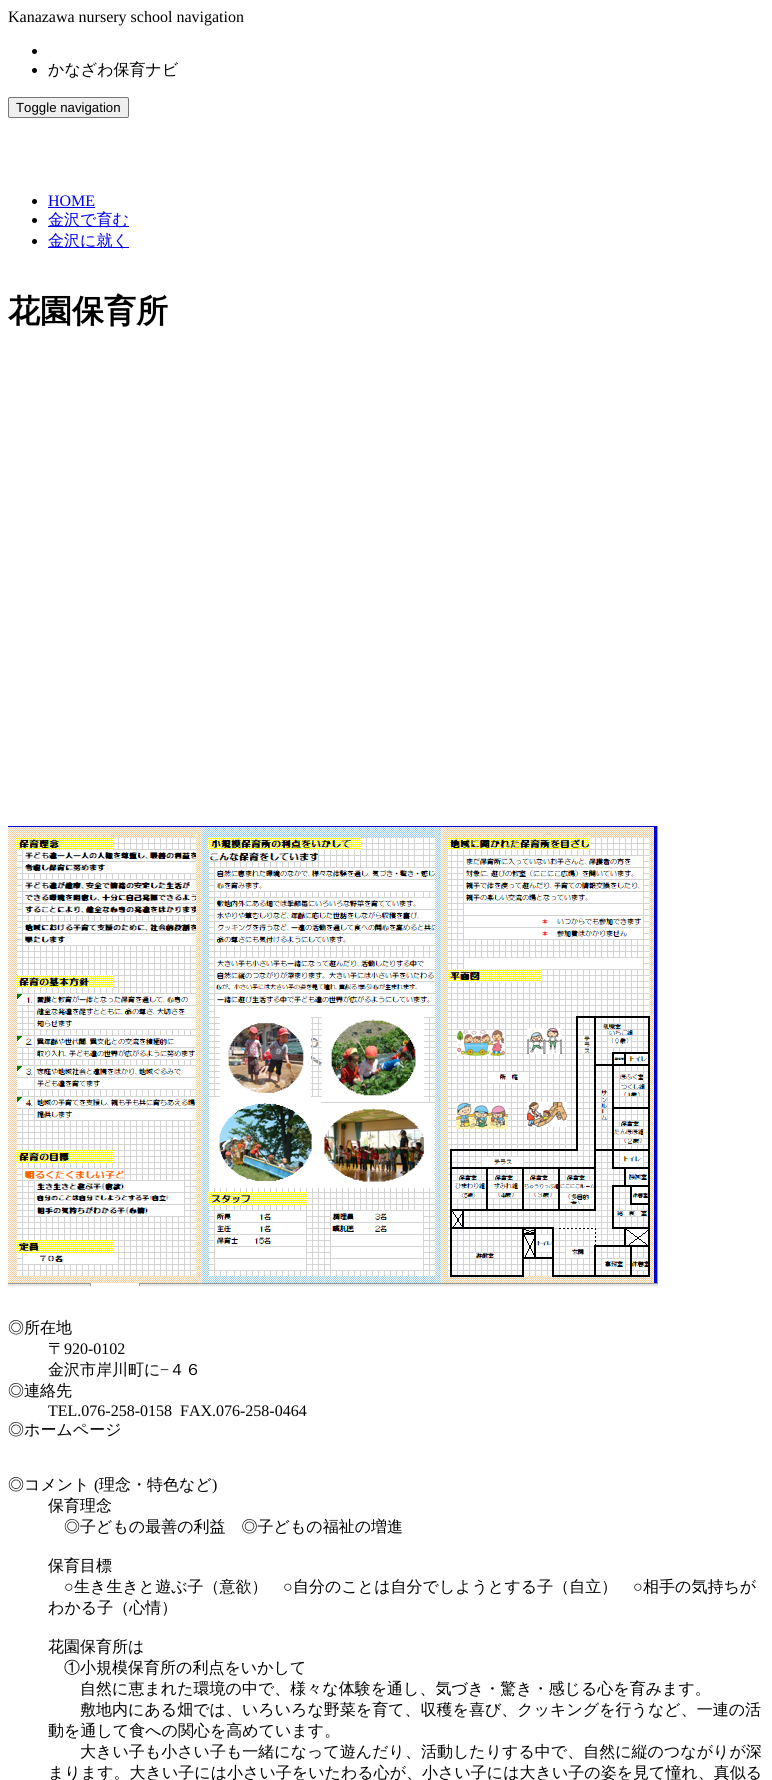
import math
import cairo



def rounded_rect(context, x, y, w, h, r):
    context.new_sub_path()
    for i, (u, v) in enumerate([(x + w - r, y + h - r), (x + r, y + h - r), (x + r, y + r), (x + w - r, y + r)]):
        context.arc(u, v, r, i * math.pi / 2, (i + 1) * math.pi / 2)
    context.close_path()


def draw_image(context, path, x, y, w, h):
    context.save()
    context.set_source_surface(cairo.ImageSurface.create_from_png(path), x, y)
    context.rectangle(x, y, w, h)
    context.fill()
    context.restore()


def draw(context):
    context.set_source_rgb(1, 1, 1)
    context.paint()
    context.set_source_rgb(0, 0, 0)
    context.arc(34.5, 51.5, 2.5, 0, 2 * math.pi)
    context.fill()
    context.arc(34.5, 70.5, 2.5, 0, 2 * math.pi)
    context.fill()
    context.set_source_rgb(239 / 255, 239 / 255, 239 / 255)
    rounded_rect(context, 8.5, 97.5, 120, 20, 1.5)
    context.fill_preserve()
    context.set_source_rgb(118 / 255, 118 / 255, 118 / 255)
    context.set_line_width(1)
    context.stroke()
    context.set_source_rgb(0, 0, 0)
    context.arc(34.5, 201.5, 2.5, 0, 2 * math.pi)
    context.fill()
    context.set_source_rgb(0, 0, 238 / 255)
    context.rectangle(48, 207, 47, 1)
    context.fill()
    context.set_source_rgb(0, 0, 0)
    context.arc(34.5, 220.5, 2.5, 0, 2 * math.pi)
    context.fill()
    context.set_source_rgb(0, 0, 238 / 255)
    context.rectangle(48, 226, 81, 1)
    context.fill()
    context.set_source_rgb(0, 0, 0)
    context.arc(34.5, 241.5, 2.5, 0, 2 * math.pi)
    context.fill()
    context.set_source_rgb(0, 0, 238 / 255)
    context.rectangle(48, 247, 81, 1)
    context.fill()
    draw_image(context, "images/1.png", 8, 826, 650, 460)
    context.select_font_face("Liberation Serif")
    context.set_font_size(16)
    context.set_source_rgb(0, 0, 0)
    context.move_to(8, 22)
    context.show_text("Kanazawa nursery school navigation")
    context.select_font_face("WenQuanYi Zen Hei Medium")
    context.move_to(48, 75)
    context.show_text("かなざわ保育ナビ")
    context.select_font_face("Liberation Sans")
    context.set_font_size(13.25)
    context.move_to(16, 112)
    context.show_text("Toggle navigation")
    context.select_font_face("Liberation Serif")
    context.set_font_size(16)
    context.set_source_rgb(0, 0, 238 / 255)
    context.move_to(48, 206)
    context.show_text("HOME")
    context.select_font_face("WenQuanYi Zen Hei Medium")
    context.move_to(48, 225)
    context.show_text("金沢で育む")
    context.move_to(48, 246)
    context.show_text("金沢に就く")
    context.select_font_face("WenQuanYi Zen Hei", cairo.FontSlant.NORMAL, cairo.FontWeight.BOLD)
    context.set_font_size(32)
    context.set_source_rgb(0, 0, 0)
    context.move_to(8, 322)
    context.show_text("花園保育所")
    context.select_font_face("WenQuanYi Zen Hei Medium")
    context.set_font_size(16)
    context.move_to(8, 1333)
    context.show_text("◎所在地")
    context.move_to(48, 1354)
    context.show_text("〒")
    context.select_font_face("Liberation Serif")
    context.move_to(64, 1354)
    context.show_text("920-0102")
    context.select_font_face("WenQuanYi Zen Hei Medium")
    context.move_to(48, 1375)
    context.show_text("金沢市岸川町に")
    context.select_font_face("Liberation Serif")
    context.move_to(160, 1375)
    context.show_text("−")
    context.select_font_face("WenQuanYi Zen Hei Medium")
    context.move_to(169, 1375)
    context.show_text("４６")
    context.move_to(8, 1396)
    context.show_text("◎連絡先")
    context.select_font_face("Liberation Serif")
    context.move_to(48, 1416)
    context.show_text("TEL.076-258-0158  FAX.076-258-0464")
    context.select_font_face("WenQuanYi Zen Hei Medium")
    context.move_to(8, 1435)
    context.show_text("◎ホームページ")
    context.move_to(8, 1490)
    context.show_text("◎コメント")
    context.select_font_face("Liberation Serif")
    context.move_to(94, 1490)
    context.show_text("(")
    context.select_font_face("WenQuanYi Zen Hei Medium")
    context.move_to(99, 1490)
    context.show_text("理念・特色など")
    context.select_font_face("Liberation Serif")
    context.move_to(212, 1490)
    context.show_text(")")
    context.select_font_face("WenQuanYi Zen Hei Medium")
    context.move_to(48, 1511)
    context.show_text("保育理念")
    context.move_to(64, 1532)
    context.show_text("◎子どもの最善の利益　◎子どもの福祉の増進")
    context.move_to(48, 1571)
    context.show_text("保育目標")
    context.select_font_face("Liberation Serif")
    context.move_to(64, 1592)
    context.show_text("○")
    context.select_font_face("WenQuanYi Zen Hei Medium")
    context.move_to(74, 1592)
    context.show_text("生き生きと遊ぶ子（意欲）")
    context.select_font_face("Liberation Serif")
    context.move_to(283, 1592)
    context.show_text("○")
    context.select_font_face("WenQuanYi Zen Hei Medium")
    context.move_to(293, 1592)
    context.show_text("自分のことは自分でしようとする子（自立）")
    context.select_font_face("Liberation Serif")
    context.move_to(633, 1592)
    context.show_text("○")
    context.select_font_face("WenQuanYi Zen Hei Medium")
    context.move_to(643, 1592)
    context.show_text("相手の気持ちが")
    context.move_to(48, 1613)
    context.show_text("わかる子（心情）")
    context.move_to(48, 1652)
    context.show_text("花園保育所は")
    context.move_to(64, 1673)
    context.show_text("①小規模保育所の利点をいかして")
    context.move_to(80, 1694)
    context.show_text("自然に恵まれた環境の中で、様々な体験を通し、気づき・驚き・感じる心を育みます。")
    context.move_to(80, 1715)
    context.show_text("敷地内にある畑では、いろいろな野菜を育て、収穫を喜び、クッキングを行うなど、一連の活")
    context.move_to(48, 1736)
    context.show_text("動を通して食への関心を高めています。")
    context.move_to(80, 1757)
    context.show_text("大きい子も小さい子も一緒になって遊んだり、活動したりする中で、自然に縦のつながりが深")
    context.move_to(48, 1778)
    context.show_text("まります。大きい子には小さい子をいたわる心が、小さい子には大きい子の姿を見て憧れ、真似る")


surface = cairo.ImageSurface(cairo.Format.RGB24, 772, 1780)
context = cairo.Context(surface)
options = cairo.FontOptions()
options.set_hint_metrics(cairo.HintMetrics.OFF)
options.set_hint_style(cairo.HintStyle.NONE)
context.set_font_options(options)
context.set_miter_limit(4)
draw(context)
surface.write_to_png("out.png")
